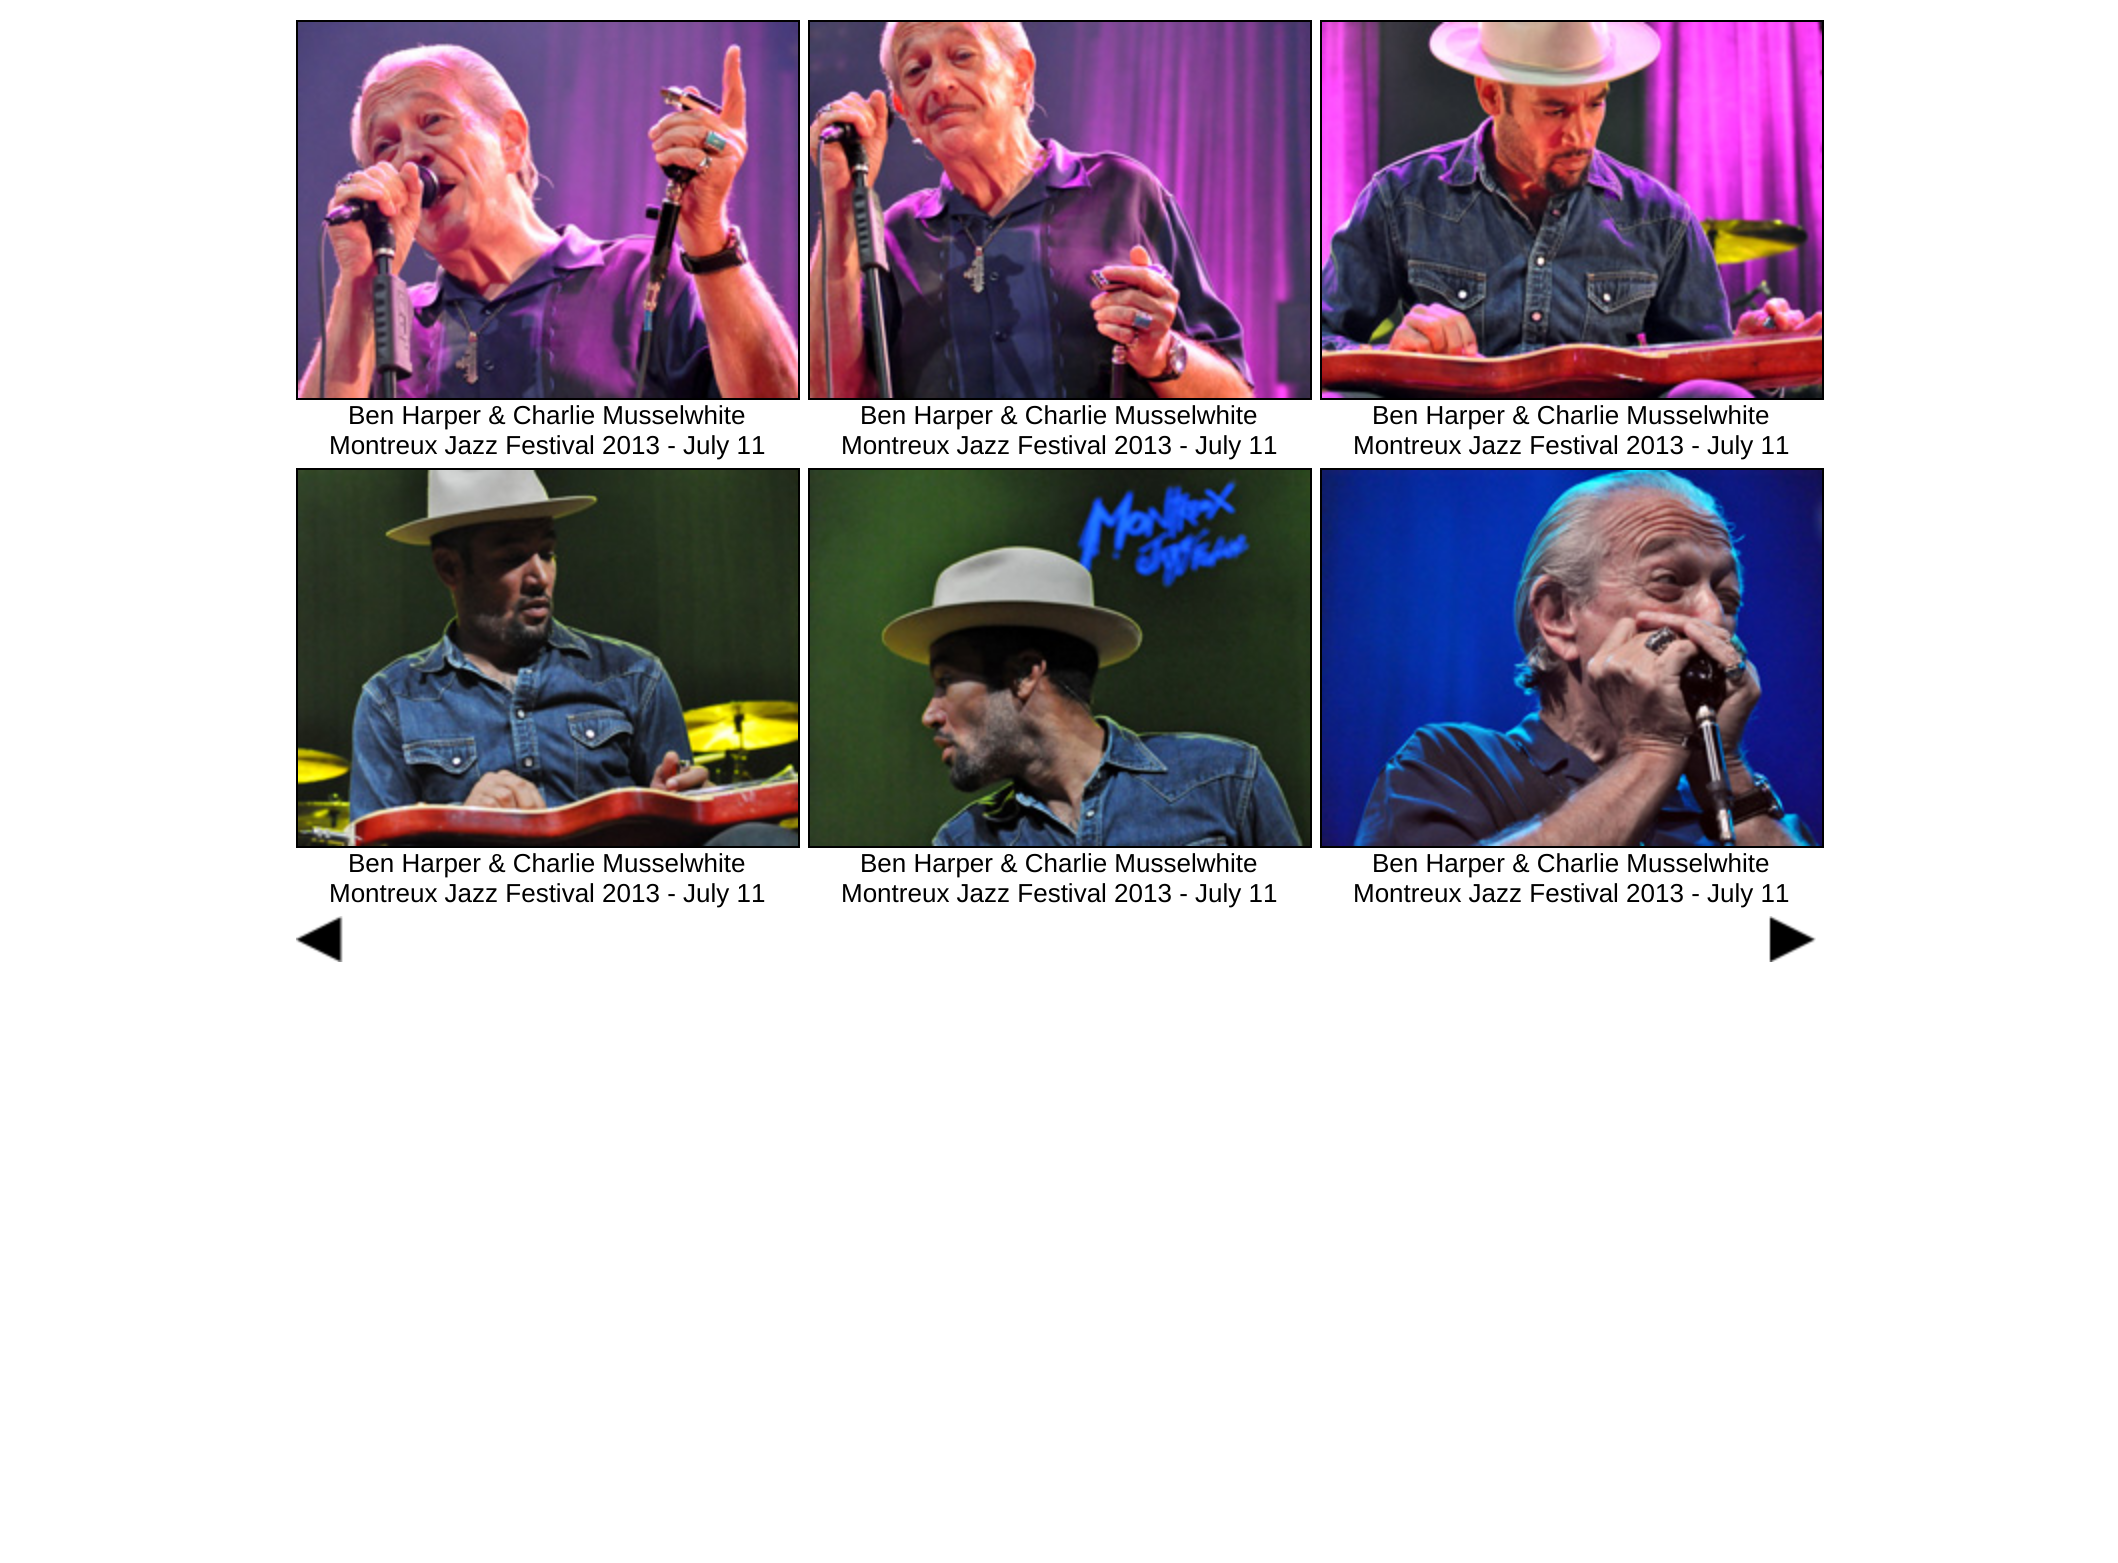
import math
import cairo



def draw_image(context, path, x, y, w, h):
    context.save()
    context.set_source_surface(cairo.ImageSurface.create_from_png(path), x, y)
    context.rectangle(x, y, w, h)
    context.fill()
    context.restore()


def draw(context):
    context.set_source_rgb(1, 1, 1)
    context.paint()
    context.rectangle(297, 21, 502, 378)
    context.set_source_rgb(0, 0, 0)
    context.stroke()
    draw_image(context, "images/1.png", 298, 22, 500, 376)
    context.rectangle(809, 21, 502, 378)
    context.stroke()
    draw_image(context, "images/2.png", 810, 22, 500, 376)
    context.rectangle(1321, 21, 502, 378)
    context.stroke()
    draw_image(context, "images/3.png", 1322, 22, 500, 376)
    context.rectangle(297, 469, 502, 378)
    context.stroke()
    draw_image(context, "images/4.png", 298, 470, 500, 376)
    context.rectangle(809, 469, 502, 378)
    context.stroke()
    draw_image(context, "images/5.png", 810, 470, 500, 376)
    context.rectangle(1321, 469, 502, 378)
    context.stroke()
    draw_image(context, "images/6.png", 1322, 470, 500, 376)
    draw_image(context, "images/7.png", 296, 916, 47, 46)
    draw_image(context, "images/8.png", 1769, 916, 47, 46)
    context.select_font_face("Liberation Sans")
    context.set_font_size(26)
    context.move_to(348, 424)
    context.show_text("Ben Harper & Charlie Musselwhite")
    context.move_to(329, 454)
    context.show_text("Montreux Jazz Festival 2013 - July 11")
    context.move_to(860, 424)
    context.show_text("Ben Harper & Charlie Musselwhite")
    context.move_to(841, 454)
    context.show_text("Montreux Jazz Festival 2013 - July 11")
    context.move_to(1372, 424)
    context.show_text("Ben Harper & Charlie Musselwhite")
    context.move_to(1353, 454)
    context.show_text("Montreux Jazz Festival 2013 - July 11")
    context.move_to(348, 872)
    context.show_text("Ben Harper & Charlie Musselwhite")
    context.move_to(329, 902)
    context.show_text("Montreux Jazz Festival 2013 - July 11")
    context.move_to(860, 872)
    context.show_text("Ben Harper & Charlie Musselwhite")
    context.move_to(841, 902)
    context.show_text("Montreux Jazz Festival 2013 - July 11")
    context.move_to(1372, 872)
    context.show_text("Ben Harper & Charlie Musselwhite")
    context.move_to(1353, 902)
    context.show_text("Montreux Jazz Festival 2013 - July 11")


surface = cairo.ImageSurface(cairo.Format.RGB24, 2118, 1563)
context = cairo.Context(surface)
options = cairo.FontOptions()
options.set_hint_metrics(cairo.HintMetrics.OFF)
options.set_hint_style(cairo.HintStyle.NONE)
context.set_font_options(options)
context.set_miter_limit(4)
draw(context)
surface.write_to_png("out.png")
